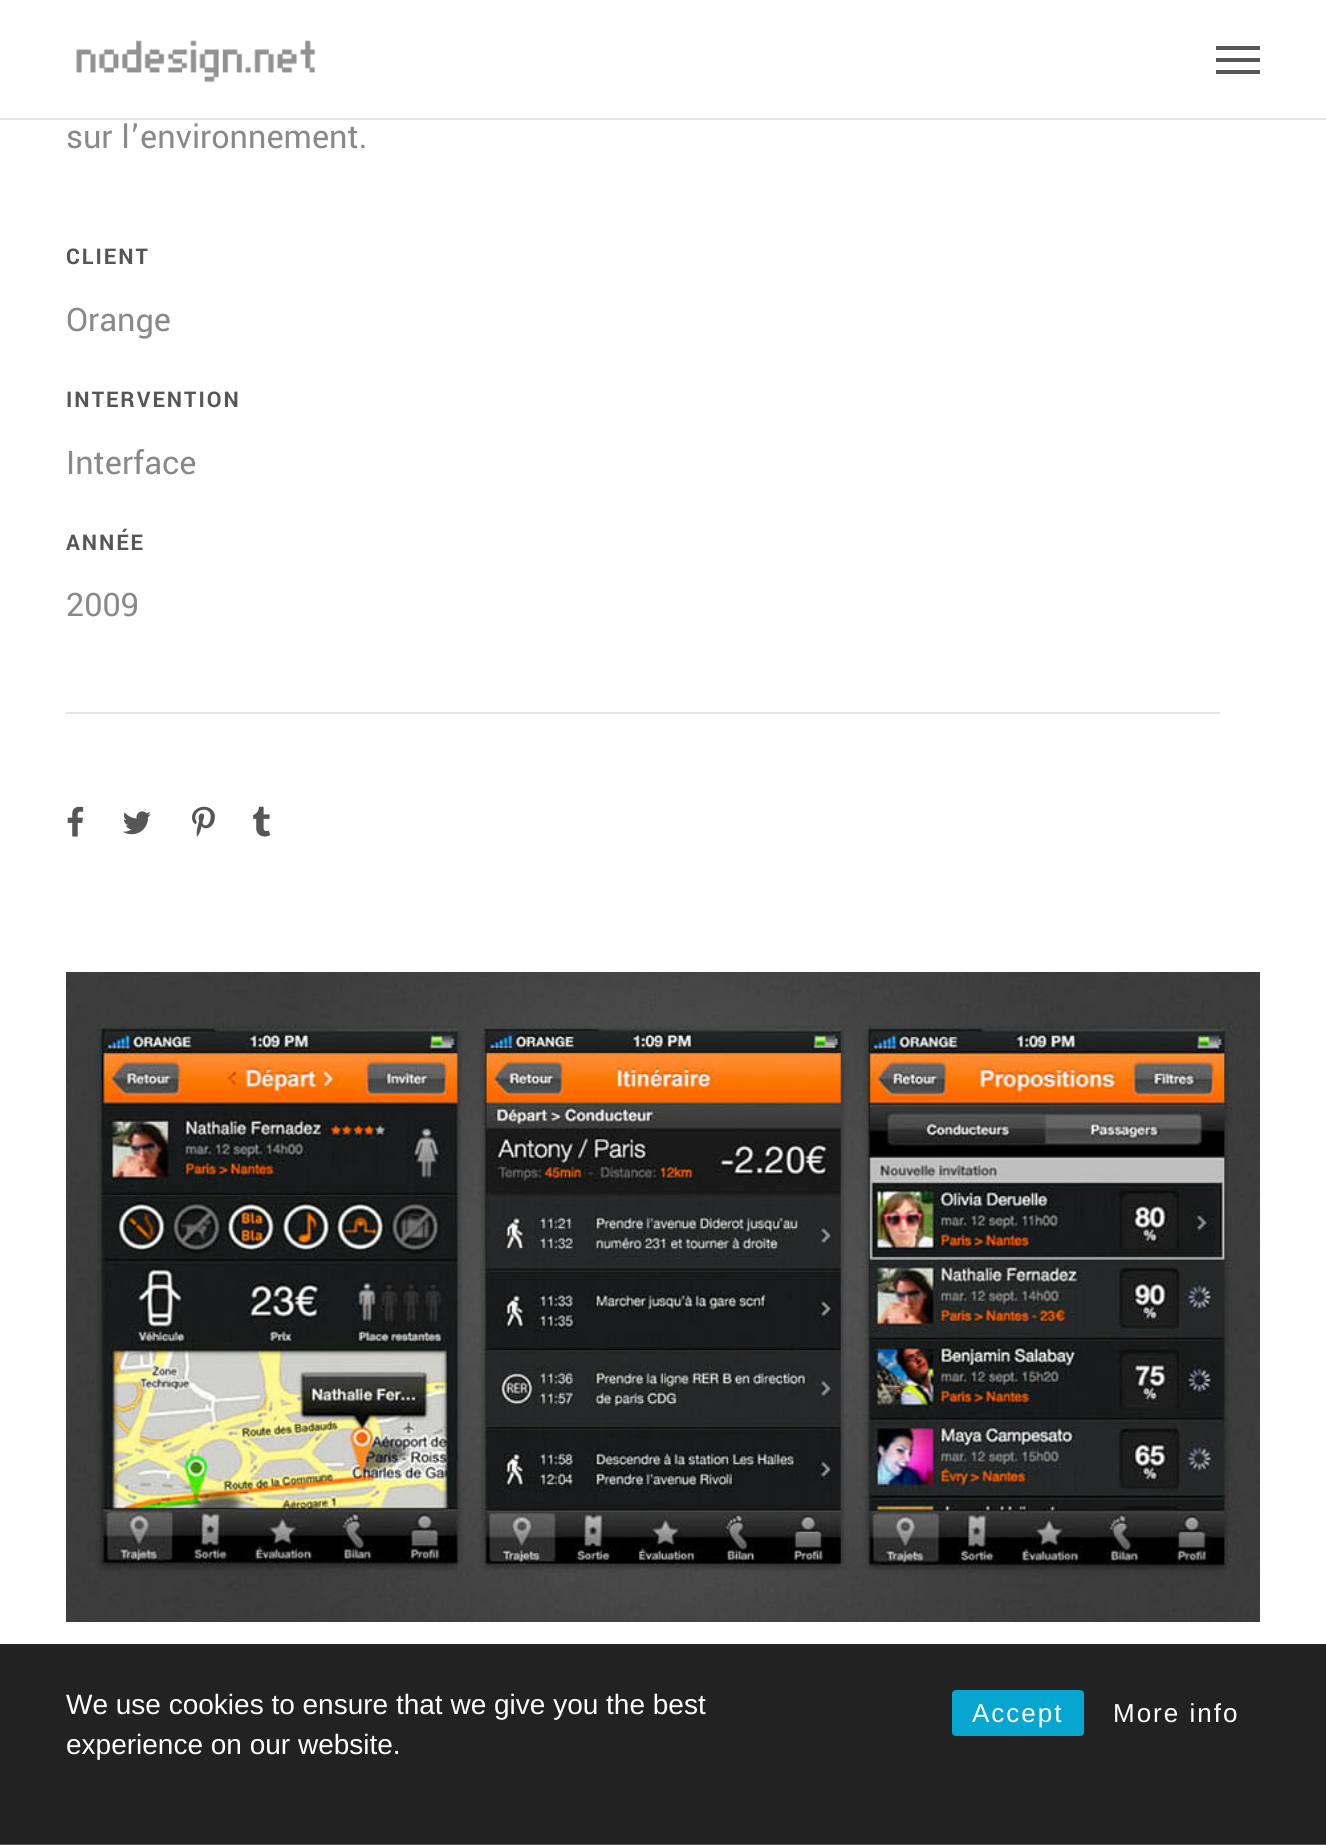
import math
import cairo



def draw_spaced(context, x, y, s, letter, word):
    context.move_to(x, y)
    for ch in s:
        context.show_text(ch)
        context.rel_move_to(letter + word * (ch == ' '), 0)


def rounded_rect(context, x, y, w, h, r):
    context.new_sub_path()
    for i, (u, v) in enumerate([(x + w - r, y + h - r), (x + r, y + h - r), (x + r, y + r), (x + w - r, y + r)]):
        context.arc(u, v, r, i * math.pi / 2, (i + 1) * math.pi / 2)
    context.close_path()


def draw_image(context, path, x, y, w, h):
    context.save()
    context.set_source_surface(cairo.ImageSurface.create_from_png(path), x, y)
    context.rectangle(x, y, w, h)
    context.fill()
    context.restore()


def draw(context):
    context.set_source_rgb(1, 1, 1)
    context.paint()
    context.set_source_rgb(229 / 255, 229 / 255, 229 / 255)
    context.rectangle(0, 118, 1326, 2)
    context.fill()
    draw_image(context, "images/1.png", 76, 40, 240, 43)
    context.set_source_rgb(86 / 255, 86 / 255, 86 / 255)
    context.rectangle(1216, 58, 44, 4)
    context.fill()
    context.rectangle(1216, 46, 44, 4)
    context.fill()
    context.rectangle(1216, 70, 44, 4)
    context.fill()
    context.set_source_rgb(229 / 255, 229 / 255, 229 / 255)
    context.rectangle(66, 712, 1154, 2)
    context.fill()
    draw_image(context, "images/2.png", 67, 806, 17, 31)
    draw_image(context, "images/3.png", 123, 811, 28, 24)
    draw_image(context, "images/4.png", 192, 806, 23, 31)
    draw_image(context, "images/5.png", 253, 806, 18, 31)
    draw_image(context, "images/6.png", 66, 972, 1194, 650)
    context.set_source_rgb(34 / 255, 34 / 255, 34 / 255)
    context.rectangle(0, 1644, 1326, 200)
    context.fill()
    context.set_source_rgb(85 / 255, 85 / 255, 85 / 255)
    context.rectangle(0, 1844, 1326, 1)
    context.fill()
    context.set_source_rgb(7 / 255, 166 / 255, 208 / 255)
    rounded_rect(context, 952, 1690, 132, 46, 4)
    context.fill()
    context.select_font_face("Yantramanav")
    context.set_font_size(36)
    context.set_source_rgb(137 / 255, 137 / 255, 137 / 255)
    context.move_to(66, 148)
    context.show_text("sur l’environnement.")
    context.select_font_face("Yantramanav", cairo.FontSlant.NORMAL, cairo.FontWeight.BOLD)
    context.set_font_size(24)
    context.set_source_rgb(86 / 255, 86 / 255, 86 / 255)
    draw_spaced(context, 66, 264, "CLIENT", 2, 0)
    context.select_font_face("Yantramanav")
    context.set_font_size(36)
    context.set_source_rgb(137 / 255, 137 / 255, 137 / 255)
    context.move_to(66, 331)
    context.show_text("Orange")
    context.select_font_face("Yantramanav", cairo.FontSlant.NORMAL, cairo.FontWeight.BOLD)
    context.set_font_size(24)
    context.set_source_rgb(86 / 255, 86 / 255, 86 / 255)
    draw_spaced(context, 66, 407, "INTERVENTION", 2, 0)
    context.select_font_face("Yantramanav")
    context.set_font_size(36)
    context.set_source_rgb(137 / 255, 137 / 255, 137 / 255)
    context.move_to(66, 474)
    context.show_text("Interface")
    context.select_font_face("Yantramanav", cairo.FontSlant.NORMAL, cairo.FontWeight.BOLD)
    context.set_font_size(24)
    context.set_source_rgb(86 / 255, 86 / 255, 86 / 255)
    draw_spaced(context, 66, 550, "ANNÉE", 2, 0)
    context.select_font_face("Yantramanav")
    context.set_font_size(36)
    context.set_source_rgb(137 / 255, 137 / 255, 137 / 255)
    context.move_to(66, 616)
    context.show_text("2009")
    context.select_font_face("Liberation Sans")
    context.set_font_size(28)
    context.set_source_rgb(1, 1, 1)
    context.move_to(66, 1714)
    context.show_text("We use cookies to ensure that we give you the best")
    context.move_to(66, 1754)
    context.show_text("experience on our website.")
    context.set_font_size(26)
    draw_spaced(context, 972, 1722, "Accept", 2, 0)
    draw_spaced(context, 1113, 1722, "More info", 2, 0)


surface = cairo.ImageSurface(cairo.Format.RGB24, 1326, 1845)
context = cairo.Context(surface)
options = cairo.FontOptions()
options.set_hint_metrics(cairo.HintMetrics.OFF)
options.set_hint_style(cairo.HintStyle.NONE)
context.set_font_options(options)
context.set_miter_limit(4)
draw(context)
surface.write_to_png("out.png")
